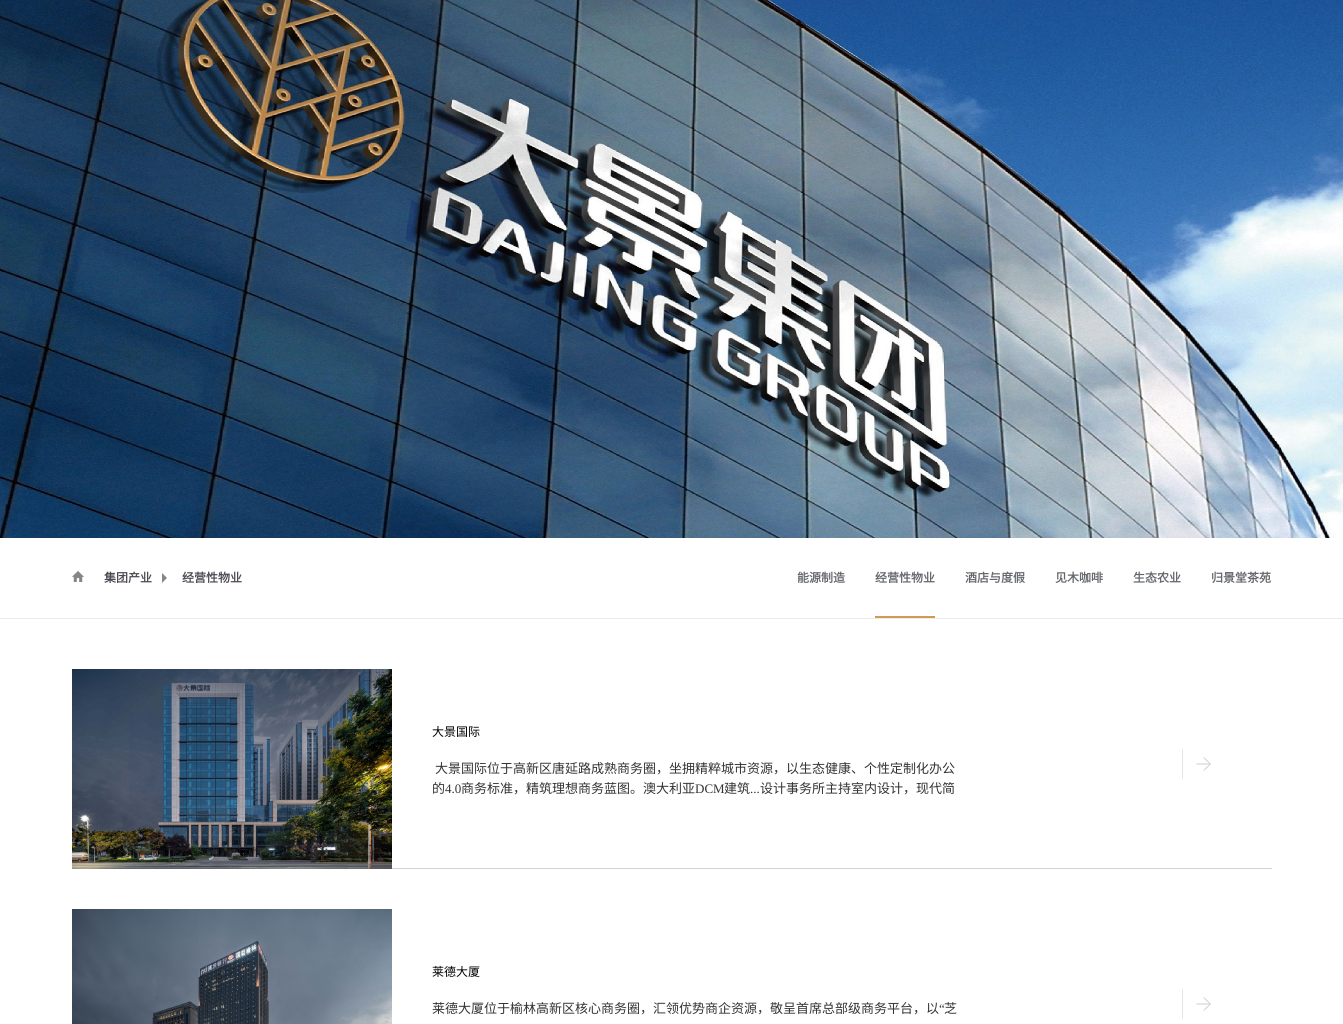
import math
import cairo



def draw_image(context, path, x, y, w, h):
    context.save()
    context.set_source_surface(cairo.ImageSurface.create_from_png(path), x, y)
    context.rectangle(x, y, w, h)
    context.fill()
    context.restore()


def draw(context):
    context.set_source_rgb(1, 1, 1)
    context.paint()
    draw_image(context, "images/1.png", 0, 0, 1343, 538)
    context.set_source_rgb(234 / 255, 234 / 255, 234 / 255)
    context.rectangle(0, 618, 1343, 1)
    context.fill()
    draw_image(context, "images/2.png", 72, 571, 12, 11)
    context.set_source_rgb(136 / 255, 132 / 255, 139 / 255)
    context.new_path()
    context.move_to(162, 583)
    context.line_to(162, 573)
    context.line_to(167, 578)
    context.close_path()
    context.fill()
    context.set_source_rgb(210 / 255, 153 / 255, 86 / 255)
    context.rectangle(875, 616, 60, 2)
    context.fill()
    draw_image(context, "images/3.png", 72, 669, 320, 200)
    draw_image(context, "images/4.png", 1196, 757, 15, 14)
    context.set_source_rgb(229 / 255, 229 / 255, 229 / 255)
    context.rectangle(1182, 749, 1, 30)
    context.fill()
    context.set_source_rgb(210 / 255, 210 / 255, 210 / 255)
    context.rectangle(392, 868, 880, 1)
    context.fill()
    draw_image(context, "images/5.png", 72, 909, 320, 115)
    draw_image(context, "images/4.png", 1196, 997, 15, 14)
    context.set_source_rgb(229 / 255, 229 / 255, 229 / 255)
    context.rectangle(1182, 989, 1, 30)
    context.fill()
    context.select_font_face("Noto Sans CJK SC", cairo.FontSlant.NORMAL, cairo.FontWeight.BOLD)
    context.set_font_size(12)
    context.set_source_rgb(77 / 255, 72 / 255, 82 / 255)
    context.move_to(104, 582)
    context.show_text("集团产业")
    context.move_to(182, 582)
    context.show_text("经营性物业")
    context.set_source_rgb(99 / 255, 102 / 255, 107 / 255)
    context.move_to(797, 582)
    context.show_text("能源制造")
    context.move_to(875, 582)
    context.show_text("经营性物业")
    context.move_to(965, 582)
    context.show_text("酒店与度假")
    context.move_to(1055, 582)
    context.show_text("见木咖啡")
    context.move_to(1133, 582)
    context.show_text("生态农业")
    context.move_to(1211, 582)
    context.show_text("归景堂茶苑")
    context.select_font_face("Noto Sans CJK SC")
    context.set_source_rgb(0, 0, 0)
    context.move_to(432, 736)
    context.show_text("大景国际")
    context.set_font_size(13)
    context.set_source_rgb(51 / 255, 51 / 255, 51 / 255)
    context.move_to(435, 773)
    context.show_text("大景国际位于高新区唐延路成熟商务圈，坐拥精粹城市资源，以生态健康、个性定制化办公")
    context.move_to(432, 793)
    context.show_text("的")
    context.select_font_face("Liberation Serif")
    context.move_to(445, 793)
    context.show_text("4.0")
    context.select_font_face("Noto Sans CJK SC")
    context.move_to(461, 793)
    context.show_text("商务标准，精筑理想商务蓝图。澳大利亚")
    context.select_font_face("Liberation Serif")
    context.move_to(695, 793)
    context.show_text("DCM")
    context.select_font_face("Noto Sans CJK SC")
    context.move_to(724, 793)
    context.show_text("建筑")
    context.select_font_face("Liberation Serif")
    context.move_to(750, 793)
    context.show_text("...")
    context.select_font_face("Noto Sans CJK SC")
    context.move_to(760, 793)
    context.show_text("设计事务所主持室内设计，现代简")
    context.set_font_size(12)
    context.set_source_rgb(0, 0, 0)
    context.move_to(432, 976)
    context.show_text("莱德大厦")
    context.set_font_size(13)
    context.set_source_rgb(51 / 255, 51 / 255, 51 / 255)
    context.move_to(432, 1013)
    context.show_text("莱德大厦位于榆林高新区核心商务圈，汇领优势商企资源，敬呈首席总部级商务平台，以")
    context.select_font_face("Liberation Serif")
    context.move_to(939, 1013)
    context.show_text("“")
    context.select_font_face("Noto Sans CJK SC")
    context.move_to(944, 1013)
    context.show_text("芝")


surface = cairo.ImageSurface(cairo.Format.RGB24, 1343, 1024)
context = cairo.Context(surface)
options = cairo.FontOptions()
options.set_hint_metrics(cairo.HintMetrics.OFF)
options.set_hint_style(cairo.HintStyle.NONE)
context.set_font_options(options)
context.set_miter_limit(4)
draw(context)
surface.write_to_png("out.png")
